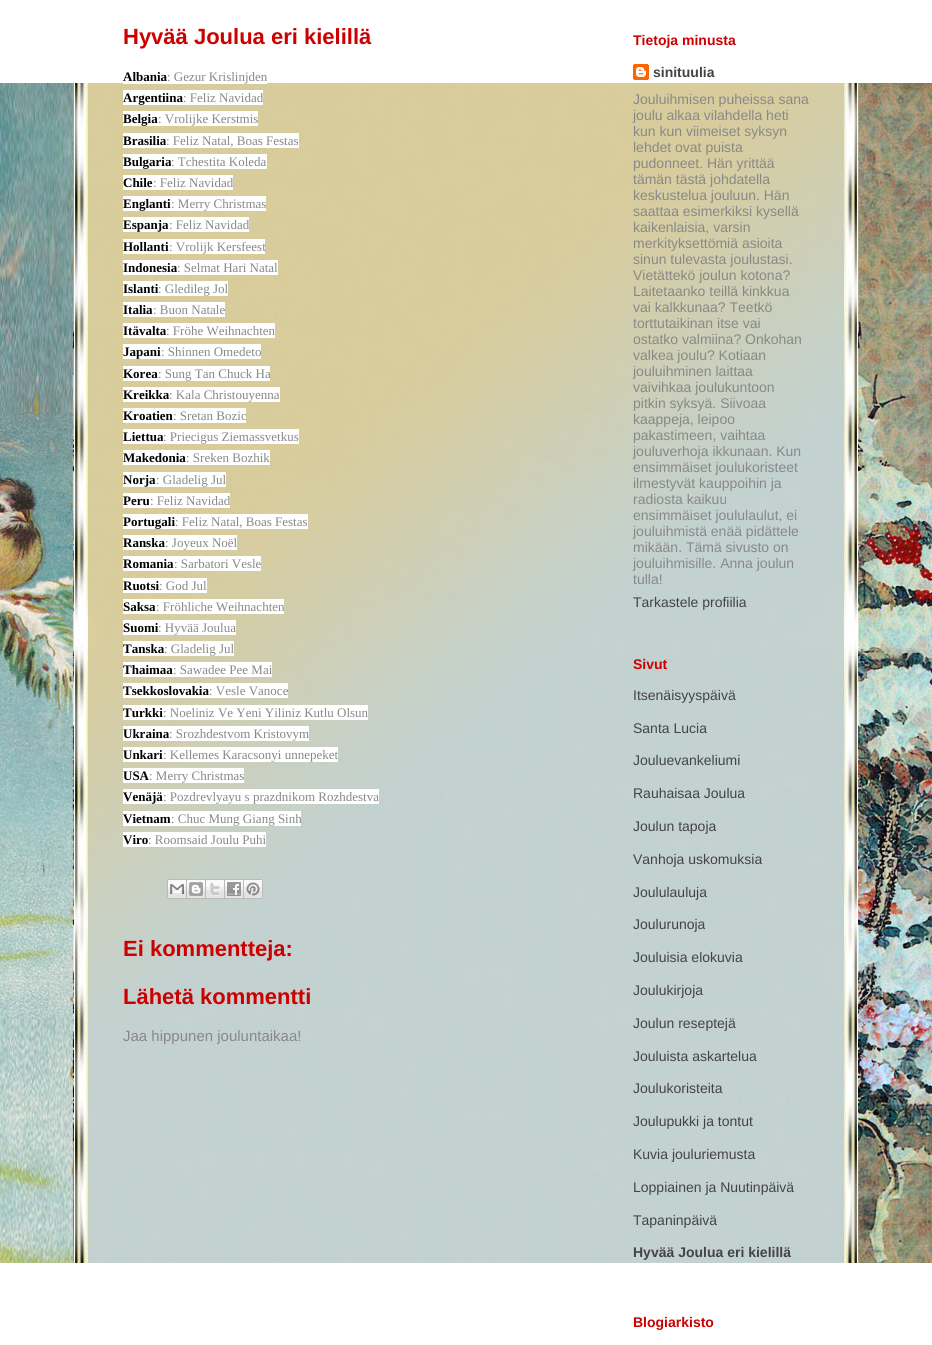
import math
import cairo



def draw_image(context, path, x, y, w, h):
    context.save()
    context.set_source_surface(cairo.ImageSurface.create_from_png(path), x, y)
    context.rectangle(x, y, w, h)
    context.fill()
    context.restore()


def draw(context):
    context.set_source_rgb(1, 1, 1)
    context.paint()
    draw_image(context, "images/1.png", 0, 83, 932, 1180)
    context.set_source_rgb(1, 1, 1)
    context.rectangle(123, 83, 144, 1)
    context.fill()
    context.rectangle(123, 90, 140, 15)
    context.fill()
    context.rectangle(123, 111, 135, 15)
    context.fill()
    context.rectangle(123, 133, 43, 15)
    context.fill()
    context.rectangle(123, 154, 48, 15)
    context.fill()
    context.rectangle(123, 175, 110, 15)
    context.fill()
    context.rectangle(123, 196, 143, 15)
    context.fill()
    context.rectangle(123, 217, 126, 15)
    context.fill()
    context.rectangle(123, 239, 142, 15)
    context.fill()
    context.rectangle(123, 260, 155, 15)
    context.fill()
    context.rectangle(123, 281, 35, 15)
    context.fill()
    context.rectangle(123, 302, 102, 15)
    context.fill()
    context.rectangle(123, 323, 43, 15)
    context.fill()
    context.rectangle(123, 344, 138, 15)
    context.fill()
    context.rectangle(123, 366, 147, 15)
    context.fill()
    context.rectangle(123, 387, 46, 15)
    context.fill()
    context.rectangle(123, 408, 123, 15)
    context.fill()
    context.rectangle(123, 429, 40, 15)
    context.fill()
    context.rectangle(123, 450, 147, 15)
    context.fill()
    context.rectangle(123, 472, 103, 15)
    context.fill()
    context.rectangle(123, 493, 107, 15)
    context.fill()
    context.rectangle(123, 514, 185, 15)
    context.fill()
    context.rectangle(123, 535, 114, 15)
    context.fill()
    context.rectangle(123, 556, 138, 15)
    context.fill()
    context.rectangle(123, 578, 84, 15)
    context.fill()
    context.rectangle(123, 599, 161, 15)
    context.fill()
    context.rectangle(123, 620, 35, 15)
    context.fill()
    context.rectangle(123, 641, 111, 15)
    context.fill()
    context.rectangle(123, 662, 149, 15)
    context.fill()
    context.rectangle(123, 683, 165, 15)
    context.fill()
    context.rectangle(123, 705, 245, 15)
    context.fill()
    context.rectangle(123, 726, 46, 15)
    context.fill()
    context.rectangle(123, 747, 215, 15)
    context.fill()
    context.rectangle(123, 768, 121, 15)
    context.fill()
    context.rectangle(123, 789, 256, 15)
    context.fill()
    context.rectangle(123, 811, 178, 15)
    context.fill()
    context.rectangle(123, 832, 143, 15)
    context.fill()
    draw_image(context, "images/2.png", 167, 879, 20, 20)
    draw_image(context, "images/3.png", 187, 879, 19, 20)
    draw_image(context, "images/4.png", 206, 879, 19, 20)
    draw_image(context, "images/5.png", 225, 879, 19, 20)
    draw_image(context, "images/6.png", 244, 879, 19, 20)
    draw_image(context, "images/7.png", 633, 64, 16, 16)
    context.select_font_face("Liberation Sans", cairo.FontSlant.NORMAL, cairo.FontWeight.BOLD)
    context.set_font_size(22)
    context.set_source_rgb(204 / 255, 0, 0)
    context.move_to(123, 44)
    context.show_text("Hyvää Joulua eri kielillä")
    context.select_font_face("Liberation Serif", cairo.FontSlant.NORMAL, cairo.FontWeight.BOLD)
    context.set_font_size(13)
    context.set_source_rgb(0, 0, 0)
    context.move_to(123, 81)
    context.show_text("Albania")
    context.select_font_face("Liberation Serif")
    context.set_source_rgb(136 / 255, 136 / 255, 136 / 255)
    context.move_to(167, 81)
    context.show_text(": Gezur Krislinjden")
    context.select_font_face("Liberation Serif", cairo.FontSlant.NORMAL, cairo.FontWeight.BOLD)
    context.set_source_rgb(0, 0, 0)
    context.move_to(123, 102)
    context.show_text("Argentiina")
    context.select_font_face("Liberation Serif")
    context.set_source_rgb(136 / 255, 136 / 255, 136 / 255)
    context.move_to(183, 102)
    context.show_text(": Feliz Navidad")
    context.select_font_face("Liberation Serif", cairo.FontSlant.NORMAL, cairo.FontWeight.BOLD)
    context.set_source_rgb(0, 0, 0)
    context.move_to(123, 123)
    context.show_text("Belgia")
    context.select_font_face("Liberation Serif")
    context.set_source_rgb(136 / 255, 136 / 255, 136 / 255)
    context.move_to(158, 123)
    context.show_text(": Vrolijke Kerstmis")
    context.select_font_face("Liberation Serif", cairo.FontSlant.NORMAL, cairo.FontWeight.BOLD)
    context.set_source_rgb(0, 0, 0)
    context.move_to(123, 145)
    context.show_text("Brasilia")
    context.set_source_rgb(1, 1, 1)
    context.rectangle(166, 133, 133, 15)
    context.fill()
    context.select_font_face("Liberation Serif")
    context.set_source_rgb(136 / 255, 136 / 255, 136 / 255)
    context.move_to(166, 145)
    context.show_text(": Feliz Natal, Boas Festas")
    context.select_font_face("Liberation Serif", cairo.FontSlant.NORMAL, cairo.FontWeight.BOLD)
    context.set_source_rgb(0, 0, 0)
    context.move_to(123, 166)
    context.show_text("Bulgaria")
    context.set_source_rgb(1, 1, 1)
    context.rectangle(171, 154, 96, 15)
    context.fill()
    context.select_font_face("Liberation Serif")
    context.set_source_rgb(136 / 255, 136 / 255, 136 / 255)
    context.move_to(171, 166)
    context.show_text(": Tchestita Koleda")
    context.select_font_face("Liberation Serif", cairo.FontSlant.NORMAL, cairo.FontWeight.BOLD)
    context.set_source_rgb(0, 0, 0)
    context.move_to(123, 187)
    context.show_text("Chile")
    context.select_font_face("Liberation Serif")
    context.set_source_rgb(136 / 255, 136 / 255, 136 / 255)
    context.move_to(153, 187)
    context.show_text(": Feliz Navidad")
    context.select_font_face("Liberation Serif", cairo.FontSlant.NORMAL, cairo.FontWeight.BOLD)
    context.set_source_rgb(0, 0, 0)
    context.move_to(123, 208)
    context.show_text("Englanti")
    context.select_font_face("Liberation Serif")
    context.set_source_rgb(136 / 255, 136 / 255, 136 / 255)
    context.move_to(171, 208)
    context.show_text(": Merry Christmas")
    context.select_font_face("Liberation Serif", cairo.FontSlant.NORMAL, cairo.FontWeight.BOLD)
    context.set_source_rgb(0, 0, 0)
    context.move_to(123, 229)
    context.show_text("Espanja")
    context.select_font_face("Liberation Serif")
    context.set_source_rgb(136 / 255, 136 / 255, 136 / 255)
    context.move_to(169, 229)
    context.show_text(": Feliz Navidad")
    context.select_font_face("Liberation Serif", cairo.FontSlant.NORMAL, cairo.FontWeight.BOLD)
    context.set_source_rgb(0, 0, 0)
    context.move_to(123, 251)
    context.show_text("Hollanti")
    context.select_font_face("Liberation Serif")
    context.set_source_rgb(136 / 255, 136 / 255, 136 / 255)
    context.move_to(169, 251)
    context.show_text(": Vrolijk Kersfeest")
    context.select_font_face("Liberation Serif", cairo.FontSlant.NORMAL, cairo.FontWeight.BOLD)
    context.set_source_rgb(0, 0, 0)
    context.move_to(123, 272)
    context.show_text("Indonesia")
    context.select_font_face("Liberation Serif")
    context.set_source_rgb(136 / 255, 136 / 255, 136 / 255)
    context.move_to(177, 272)
    context.show_text(": Selmat Hari Natal")
    context.select_font_face("Liberation Serif", cairo.FontSlant.NORMAL, cairo.FontWeight.BOLD)
    context.set_source_rgb(0, 0, 0)
    context.move_to(123, 293)
    context.show_text("Islanti")
    context.set_source_rgb(1, 1, 1)
    context.rectangle(158, 281, 70, 15)
    context.fill()
    context.select_font_face("Liberation Serif")
    context.set_source_rgb(136 / 255, 136 / 255, 136 / 255)
    context.move_to(158, 293)
    context.show_text(": Gledileg Jol")
    context.select_font_face("Liberation Serif", cairo.FontSlant.NORMAL, cairo.FontWeight.BOLD)
    context.set_source_rgb(0, 0, 0)
    context.move_to(123, 314)
    context.show_text("Italia")
    context.select_font_face("Liberation Serif")
    context.set_source_rgb(136 / 255, 136 / 255, 136 / 255)
    context.move_to(153, 314)
    context.show_text(": Buon Natale")
    context.select_font_face("Liberation Serif", cairo.FontSlant.NORMAL, cairo.FontWeight.BOLD)
    context.set_source_rgb(0, 0, 0)
    context.move_to(123, 335)
    context.show_text("Itävalta")
    context.set_source_rgb(1, 1, 1)
    context.rectangle(166, 323, 109, 15)
    context.fill()
    context.select_font_face("Liberation Serif")
    context.set_source_rgb(136 / 255, 136 / 255, 136 / 255)
    context.move_to(166, 335)
    context.show_text(": Fröhe Weihnachten")
    context.select_font_face("Liberation Serif", cairo.FontSlant.NORMAL, cairo.FontWeight.BOLD)
    context.set_source_rgb(0, 0, 0)
    context.move_to(123, 356)
    context.show_text("Japani")
    context.select_font_face("Liberation Serif")
    context.set_source_rgb(136 / 255, 136 / 255, 136 / 255)
    context.move_to(161, 356)
    context.show_text(": Shinnen Omedeto")
    context.select_font_face("Liberation Serif", cairo.FontSlant.NORMAL, cairo.FontWeight.BOLD)
    context.set_source_rgb(0, 0, 0)
    context.move_to(123, 378)
    context.show_text("Korea")
    context.select_font_face("Liberation Serif")
    context.set_source_rgb(136 / 255, 136 / 255, 136 / 255)
    context.move_to(158, 378)
    context.show_text(": Sung Tan Chuck Ha")
    context.select_font_face("Liberation Serif", cairo.FontSlant.NORMAL, cairo.FontWeight.BOLD)
    context.set_source_rgb(0, 0, 0)
    context.move_to(123, 399)
    context.show_text("Kreikka")
    context.set_source_rgb(1, 1, 1)
    context.rectangle(169, 387, 111, 15)
    context.fill()
    context.select_font_face("Liberation Serif")
    context.set_source_rgb(136 / 255, 136 / 255, 136 / 255)
    context.move_to(169, 399)
    context.show_text(": Kala Christouyenna")
    context.select_font_face("Liberation Serif", cairo.FontSlant.NORMAL, cairo.FontWeight.BOLD)
    context.set_source_rgb(0, 0, 0)
    context.move_to(123, 420)
    context.show_text("Kroatien")
    context.select_font_face("Liberation Serif")
    context.set_source_rgb(136 / 255, 136 / 255, 136 / 255)
    context.move_to(173, 420)
    context.show_text(": Sretan Bozic")
    context.select_font_face("Liberation Serif", cairo.FontSlant.NORMAL, cairo.FontWeight.BOLD)
    context.set_source_rgb(0, 0, 0)
    context.move_to(123, 441)
    context.show_text("Liettua")
    context.set_source_rgb(1, 1, 1)
    context.rectangle(163, 429, 136, 15)
    context.fill()
    context.select_font_face("Liberation Serif")
    context.set_source_rgb(136 / 255, 136 / 255, 136 / 255)
    context.move_to(163, 441)
    context.show_text(": Priecigus Ziemassvetkus")
    context.select_font_face("Liberation Serif", cairo.FontSlant.NORMAL, cairo.FontWeight.BOLD)
    context.set_source_rgb(0, 0, 0)
    context.move_to(123, 462)
    context.show_text("Makedonia")
    context.select_font_face("Liberation Serif")
    context.set_source_rgb(136 / 255, 136 / 255, 136 / 255)
    context.move_to(186, 462)
    context.show_text(": Sreken Bozhik")
    context.select_font_face("Liberation Serif", cairo.FontSlant.NORMAL, cairo.FontWeight.BOLD)
    context.set_source_rgb(0, 0, 0)
    context.move_to(123, 484)
    context.show_text("Norja")
    context.select_font_face("Liberation Serif")
    context.set_source_rgb(136 / 255, 136 / 255, 136 / 255)
    context.move_to(156, 484)
    context.show_text(": Gladelig Jul")
    context.select_font_face("Liberation Serif", cairo.FontSlant.NORMAL, cairo.FontWeight.BOLD)
    context.set_source_rgb(0, 0, 0)
    context.move_to(123, 505)
    context.show_text("Peru")
    context.select_font_face("Liberation Serif")
    context.set_source_rgb(136 / 255, 136 / 255, 136 / 255)
    context.move_to(150, 505)
    context.show_text(": Feliz Navidad")
    context.select_font_face("Liberation Serif", cairo.FontSlant.NORMAL, cairo.FontWeight.BOLD)
    context.set_source_rgb(0, 0, 0)
    context.move_to(123, 526)
    context.show_text("Portugali")
    context.select_font_face("Liberation Serif")
    context.set_source_rgb(136 / 255, 136 / 255, 136 / 255)
    context.move_to(175, 526)
    context.show_text(": Feliz Natal, Boas Festas")
    context.select_font_face("Liberation Serif", cairo.FontSlant.NORMAL, cairo.FontWeight.BOLD)
    context.set_source_rgb(0, 0, 0)
    context.move_to(123, 547)
    context.show_text("Ranska")
    context.select_font_face("Liberation Serif")
    context.set_source_rgb(136 / 255, 136 / 255, 136 / 255)
    context.move_to(165, 547)
    context.show_text(": Joyeux Noël")
    context.select_font_face("Liberation Serif", cairo.FontSlant.NORMAL, cairo.FontWeight.BOLD)
    context.set_source_rgb(0, 0, 0)
    context.move_to(123, 568)
    context.show_text("Romania")
    context.select_font_face("Liberation Serif")
    context.set_source_rgb(136 / 255, 136 / 255, 136 / 255)
    context.move_to(174, 568)
    context.show_text(": Sarbatori Vesle")
    context.select_font_face("Liberation Serif", cairo.FontSlant.NORMAL, cairo.FontWeight.BOLD)
    context.set_source_rgb(0, 0, 0)
    context.move_to(123, 590)
    context.show_text("Ruotsi")
    context.select_font_face("Liberation Serif")
    context.set_source_rgb(136 / 255, 136 / 255, 136 / 255)
    context.move_to(159, 590)
    context.show_text(": God Jul")
    context.select_font_face("Liberation Serif", cairo.FontSlant.NORMAL, cairo.FontWeight.BOLD)
    context.set_source_rgb(0, 0, 0)
    context.move_to(123, 611)
    context.show_text("Saksa")
    context.select_font_face("Liberation Serif")
    context.set_source_rgb(136 / 255, 136 / 255, 136 / 255)
    context.move_to(156, 611)
    context.show_text(": Fröhliche Weihnachten")
    context.select_font_face("Liberation Serif", cairo.FontSlant.NORMAL, cairo.FontWeight.BOLD)
    context.set_source_rgb(0, 0, 0)
    context.move_to(123, 632)
    context.show_text("Suomi")
    context.set_source_rgb(1, 1, 1)
    context.rectangle(158, 620, 78, 15)
    context.fill()
    context.select_font_face("Liberation Serif")
    context.set_source_rgb(136 / 255, 136 / 255, 136 / 255)
    context.move_to(158, 632)
    context.show_text(": Hyvää Joulua")
    context.select_font_face("Liberation Serif", cairo.FontSlant.NORMAL, cairo.FontWeight.BOLD)
    context.set_source_rgb(0, 0, 0)
    context.move_to(123, 653)
    context.show_text("Tanska")
    context.select_font_face("Liberation Serif")
    context.set_source_rgb(136 / 255, 136 / 255, 136 / 255)
    context.move_to(164, 653)
    context.show_text(": Gladelig Jul")
    context.select_font_face("Liberation Serif", cairo.FontSlant.NORMAL, cairo.FontWeight.BOLD)
    context.set_source_rgb(0, 0, 0)
    context.move_to(123, 674)
    context.show_text("Thaimaa")
    context.select_font_face("Liberation Serif")
    context.set_source_rgb(136 / 255, 136 / 255, 136 / 255)
    context.move_to(173, 674)
    context.show_text(": Sawadee Pee Mai")
    context.select_font_face("Liberation Serif", cairo.FontSlant.NORMAL, cairo.FontWeight.BOLD)
    context.set_source_rgb(0, 0, 0)
    context.move_to(123, 695)
    context.show_text("Tsekkoslovakia")
    context.select_font_face("Liberation Serif")
    context.set_source_rgb(136 / 255, 136 / 255, 136 / 255)
    context.move_to(209, 695)
    context.show_text(": Vesle Vanoce")
    context.select_font_face("Liberation Serif", cairo.FontSlant.NORMAL, cairo.FontWeight.BOLD)
    context.set_source_rgb(0, 0, 0)
    context.move_to(123, 717)
    context.show_text("Turkki")
    context.select_font_face("Liberation Serif")
    context.set_source_rgb(136 / 255, 136 / 255, 136 / 255)
    context.move_to(163, 717)
    context.show_text(": Noeliniz Ve Yeni Yiliniz Kutlu Olsun")
    context.select_font_face("Liberation Serif", cairo.FontSlant.NORMAL, cairo.FontWeight.BOLD)
    context.set_source_rgb(0, 0, 0)
    context.move_to(123, 738)
    context.show_text("Ukraina")
    context.set_source_rgb(1, 1, 1)
    context.rectangle(169, 726, 140, 15)
    context.fill()
    context.select_font_face("Liberation Serif")
    context.set_source_rgb(136 / 255, 136 / 255, 136 / 255)
    context.move_to(169, 738)
    context.show_text(": Srozhdestvom Kristovym")
    context.select_font_face("Liberation Serif", cairo.FontSlant.NORMAL, cairo.FontWeight.BOLD)
    context.set_source_rgb(0, 0, 0)
    context.move_to(123, 759)
    context.show_text("Unkari")
    context.select_font_face("Liberation Serif")
    context.set_source_rgb(136 / 255, 136 / 255, 136 / 255)
    context.move_to(163, 759)
    context.show_text(": Kellemes Karacsonyi unnepeket")
    context.select_font_face("Liberation Serif", cairo.FontSlant.NORMAL, cairo.FontWeight.BOLD)
    context.set_source_rgb(0, 0, 0)
    context.move_to(123, 780)
    context.show_text("USA")
    context.select_font_face("Liberation Serif")
    context.set_source_rgb(136 / 255, 136 / 255, 136 / 255)
    context.move_to(149, 780)
    context.show_text(": Merry Christmas")
    context.select_font_face("Liberation Serif", cairo.FontSlant.NORMAL, cairo.FontWeight.BOLD)
    context.set_source_rgb(0, 0, 0)
    context.move_to(123, 801)
    context.show_text("Venäjä")
    context.select_font_face("Liberation Serif")
    context.set_source_rgb(136 / 255, 136 / 255, 136 / 255)
    context.move_to(163, 801)
    context.show_text(": Pozdrevlyayu s prazdnikom Rozhdestva")
    context.select_font_face("Liberation Serif", cairo.FontSlant.NORMAL, cairo.FontWeight.BOLD)
    context.set_source_rgb(0, 0, 0)
    context.move_to(123, 823)
    context.show_text("Vietnam")
    context.select_font_face("Liberation Serif")
    context.set_source_rgb(136 / 255, 136 / 255, 136 / 255)
    context.move_to(171, 823)
    context.show_text(": Chuc Mung Giang Sinh")
    context.select_font_face("Liberation Serif", cairo.FontSlant.NORMAL, cairo.FontWeight.BOLD)
    context.set_source_rgb(0, 0, 0)
    context.move_to(123, 844)
    context.show_text("Viro")
    context.select_font_face("Liberation Serif")
    context.set_source_rgb(136 / 255, 136 / 255, 136 / 255)
    context.move_to(148, 844)
    context.show_text(": Roomsaid Joulu Puhi")
    context.select_font_face("Liberation Sans", cairo.FontSlant.NORMAL, cairo.FontWeight.BOLD)
    context.set_font_size(22)
    context.set_source_rgb(204 / 255, 0, 0)
    context.move_to(123, 956)
    context.show_text("Ei kommentteja:")
    context.move_to(123, 1004)
    context.show_text("Lähetä kommentti")
    context.select_font_face("Liberation Sans")
    context.set_font_size(15)
    context.set_source_rgb(136 / 255, 136 / 255, 136 / 255)
    context.move_to(123, 1041)
    context.show_text("Jaa hippunen jouluntaikaa!")
    context.select_font_face("Liberation Sans", cairo.FontSlant.NORMAL, cairo.FontWeight.BOLD)
    context.set_font_size(14)
    context.set_source_rgb(204 / 255, 0, 0)
    context.move_to(633, 45)
    context.show_text("Tietoja minusta")
    context.set_source_rgb(68 / 255, 68 / 255, 68 / 255)
    context.move_to(653, 77)
    context.show_text("sinituulia")
    context.select_font_face("Liberation Sans")
    context.set_source_rgb(136 / 255, 136 / 255, 136 / 255)
    context.move_to(633, 104)
    context.show_text("Jouluihmisen puheissa sana")
    context.move_to(633, 120)
    context.show_text("joulu alkaa vilahdella heti")
    context.move_to(633, 136)
    context.show_text("kun kun viimeiset syksyn")
    context.move_to(633, 152)
    context.show_text("lehdet ovat puista")
    context.move_to(633, 168)
    context.show_text("pudonneet. Hän yrittää")
    context.move_to(633, 184)
    context.show_text("tämän tästä johdatella")
    context.move_to(633, 200)
    context.show_text("keskustelua jouluun. Hän")
    context.move_to(633, 216)
    context.show_text("saattaa esimerkiksi kysellä")
    context.move_to(633, 232)
    context.show_text("kaikenlaisia, varsin")
    context.move_to(633, 248)
    context.show_text("merkityksettömiä asioita")
    context.move_to(633, 264)
    context.show_text("sinun tulevasta joulustasi.")
    context.move_to(633, 280)
    context.show_text("Vietättekö joulun kotona?")
    context.move_to(633, 296)
    context.show_text("Laitetaanko teillä kinkkua")
    context.move_to(633, 312)
    context.show_text("vai kalkkunaa? Teetkö")
    context.move_to(633, 328)
    context.show_text("torttutaikinan itse vai")
    context.move_to(633, 344)
    context.show_text("ostatko valmiina? Onkohan")
    context.move_to(633, 360)
    context.show_text("valkea joulu? Kotiaan")
    context.move_to(633, 376)
    context.show_text("jouluihminen laittaa")
    context.move_to(633, 392)
    context.show_text("vaivihkaa joulukuntoon")
    context.move_to(633, 408)
    context.show_text("pitkin syksyä. Siivoaa")
    context.move_to(633, 424)
    context.show_text("kaappeja, leipoo")
    context.move_to(633, 440)
    context.show_text("pakastimeen, vaihtaa")
    context.move_to(633, 456)
    context.show_text("jouluverhoja ikkunaan. Kun")
    context.move_to(633, 472)
    context.show_text("ensimmäiset joulukoristeet")
    context.move_to(633, 488)
    context.show_text("ilmestyvät kauppoihin ja")
    context.move_to(633, 504)
    context.show_text("radiosta kaikuu")
    context.move_to(633, 520)
    context.show_text("ensimmäiset joululaulut, ei")
    context.move_to(633, 536)
    context.show_text("jouluihmistä enää pidättele")
    context.move_to(633, 552)
    context.show_text("mikään. Tämä sivusto on")
    context.move_to(633, 568)
    context.show_text("jouluihmisille. Anna joulun")
    context.move_to(633, 584)
    context.show_text("tulla!")
    context.set_source_rgb(68 / 255, 68 / 255, 68 / 255)
    context.move_to(633, 607)
    context.show_text("Tarkastele profiilia")
    context.select_font_face("Liberation Sans", cairo.FontSlant.NORMAL, cairo.FontWeight.BOLD)
    context.set_source_rgb(204 / 255, 0, 0)
    context.move_to(633, 669)
    context.show_text("Sivut")
    context.select_font_face("Liberation Sans")
    context.set_source_rgb(68 / 255, 68 / 255, 68 / 255)
    context.move_to(633, 700)
    context.show_text("Itsenäisyyspäivä")
    context.move_to(633, 733)
    context.show_text("Santa Lucia")
    context.move_to(633, 765)
    context.show_text("Jouluevankeliumi")
    context.move_to(633, 798)
    context.show_text("Rauhaisaa Joulua")
    context.move_to(633, 831)
    context.show_text("Joulun tapoja")
    context.move_to(633, 864)
    context.show_text("Vanhoja uskomuksia")
    context.move_to(633, 897)
    context.show_text("Joululauluja")
    context.move_to(633, 929)
    context.show_text("Joulurunoja")
    context.move_to(633, 962)
    context.show_text("Jouluisia elokuvia")
    context.move_to(633, 995)
    context.show_text("Joulukirjoja")
    context.move_to(633, 1028)
    context.show_text("Joulun reseptejä")
    context.move_to(633, 1061)
    context.show_text("Jouluista askartelua")
    context.move_to(633, 1093)
    context.show_text("Joulukoristeita")
    context.move_to(633, 1126)
    context.show_text("Joulupukki ja tontut")
    context.move_to(633, 1159)
    context.show_text("Kuvia jouluriemusta")
    context.move_to(633, 1192)
    context.show_text("Loppiainen ja Nuutinpäivä")
    context.move_to(633, 1225)
    context.show_text("Tapaninpäivä")
    context.select_font_face("Liberation Sans", cairo.FontSlant.NORMAL, cairo.FontWeight.BOLD)
    context.move_to(633, 1257)
    context.show_text("Hyvää Joulua eri kielillä")
    context.set_source_rgb(204 / 255, 0, 0)
    context.move_to(633, 1327)
    context.show_text("Blogiarkisto")


surface = cairo.ImageSurface(cairo.Format.RGB24, 932, 1345)
context = cairo.Context(surface)
options = cairo.FontOptions()
options.set_hint_metrics(cairo.HintMetrics.OFF)
options.set_hint_style(cairo.HintStyle.NONE)
context.set_font_options(options)
context.set_miter_limit(4)
draw(context)
surface.write_to_png("out.png")
